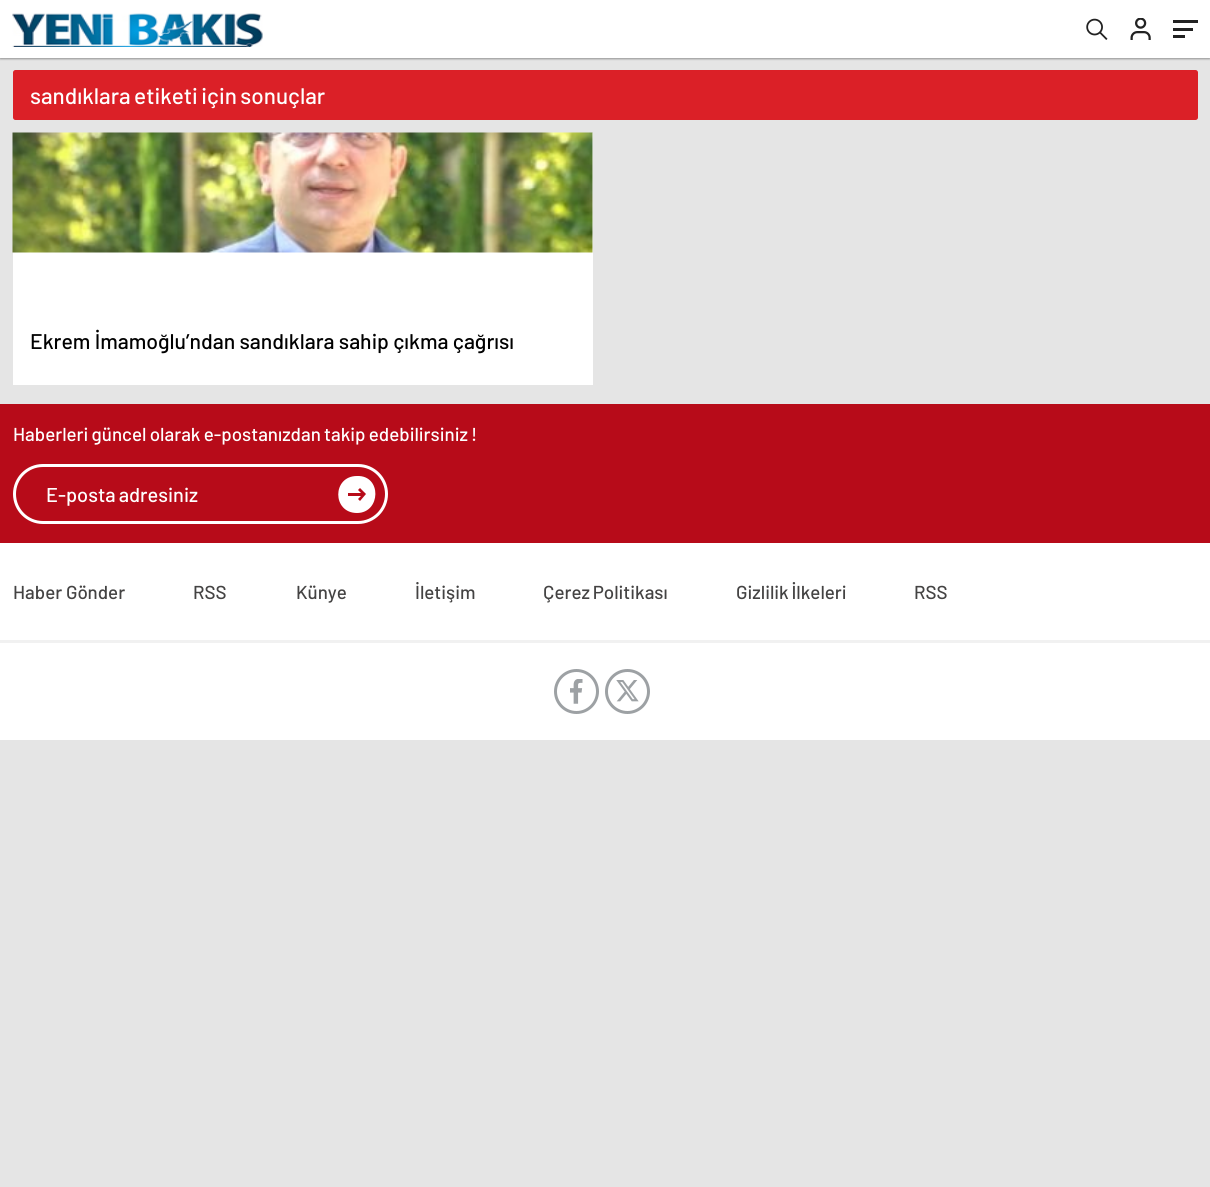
import math
import cairo



def draw_spaced(context, x, y, s, letter, word):
    context.move_to(x, y)
    for ch in s:
        context.show_text(ch)
        context.rel_move_to(letter + word * (ch == ' '), 0)


def rounded_rect(context, x, y, w, h, r):
    context.new_sub_path()
    for i, (u, v) in enumerate([(x + w - r, y + h - r), (x + r, y + h - r), (x + r, y + r), (x + w - r, y + r)]):
        context.arc(u, v, r, i * math.pi / 2, (i + 1) * math.pi / 2)
    context.close_path()


def draw_shadow(context, x, y, w, h, r, blur, alpha):
    context.push_group_with_content(cairo.Content.ALPHA)
    context.set_operator(cairo.Operator.SOURCE)
    for i in range(15, -16, -2):
        e = blur * i / 6
        if min(w, h) + 2 * e > 0:
            context.set_source_rgba(0, 0, 0, alpha * math.erfc((i - 1) / 8.5) / 2)
            rounded_rect(context, x - e, y - e, w + 2 * e, h + 2 * e, max(0, min(r + e + blur * .6, min(w, h) / 2 + e)))
            context.fill()
    context.mask(context.pop_group())


def draw_image(context, path, x, y, w, h):
    context.save()
    context.set_source_surface(cairo.ImageSurface.create_from_png(path), x, y)
    context.rectangle(x, y, w, h)
    context.fill()
    context.restore()


def draw(context):
    context.set_source_rgb(229 / 255, 229 / 255, 229 / 255)
    context.paint()
    context.set_source_rgb(0, 0, 0)
    draw_shadow(context, 0, 1, 1210, 58, 0, 1, 0.37)
    context.set_source_rgb(1, 1, 1)
    context.rectangle(0, 0, 1210, 58)
    context.fill()
    draw_image(context, "images/1.png", 12, 13, 251, 34)
    draw_image(context, "images/2.png", 1086, 18, 22, 22)
    draw_image(context, "images/3.png", 1130, 18, 21, 22)
    context.set_source_rgb(34 / 255, 34 / 255, 34 / 255)
    context.rectangle(1173, 20, 25, 3)
    context.fill()
    context.rectangle(1173, 28, 20, 3)
    context.fill()
    context.rectangle(1173, 35, 12, 3)
    context.fill()
    context.set_source_rgb(219 / 255, 32 / 255, 39 / 255)
    rounded_rect(context, 13, 70, 1185, 50, 2.5)
    context.fill()
    context.set_source_rgb(1, 1, 1)
    context.rectangle(13, 133, 580, 252)
    context.fill()
    draw_image(context, "images/4.png", 12, 132, 581, 121)
    context.rectangle(0, 543, 1210, 197)
    context.fill()
    context.set_source_rgb(183 / 255, 11 / 255, 25 / 255)
    context.rectangle(0, 404, 1210, 139)
    context.fill()
    rounded_rect(context, 14.5, 465.5, 372, 57, 28.5)
    context.set_source_rgb(1, 1, 1)
    context.set_line_width(3)
    context.stroke()
    context.new_path()
    context.move_to(357, 513)
    context.curve_to(332, 513, 332, 476, 357, 476)
    context.curve_to(382, 475, 381, 513, 357, 513)
    context.close_path()
    context.move_to(348, 493)
    context.line_to(348, 496)
    context.line_to(361, 496)
    context.line_to(358, 499)
    context.line_to(360, 501)
    context.line_to(366, 494)
    context.line_to(360, 488)
    context.line_to(358, 490)
    context.line_to(361, 493)
    context.close_path()
    context.fill()
    context.set_source_rgb(241 / 255, 241 / 255, 241 / 255)
    context.rectangle(0, 640, 1210, 3)
    context.fill()
    context.arc(576.5, 691.5, 21, 0, 2 * math.pi)
    context.set_source_rgb(157 / 255, 161 / 255, 164 / 255)
    context.stroke()
    draw_image(context, "images/5.png", 570, 679, 13, 25)
    context.arc(627.5, 691.5, 21, 0, 2 * math.pi)
    context.stroke()
    draw_image(context, "images/6.png", 616, 680, 23, 22)
    context.select_font_face("Barlow Medium")
    context.set_font_size(22.5)
    context.set_source_rgb(1, 1, 1)
    draw_spaced(context, 30, 104, "sandıklara etiketi için sonuçlar", 0, -1)
    context.set_font_size(21.25)
    context.set_source_rgb(0, 0, 0)
    context.move_to(30, 349)
    context.show_text("Ekrem İmamoğlu’ndan sandıklara sahip çıkma çağrısı")
    context.set_font_size(18.75)
    context.set_source_rgb(1, 1, 1)
    draw_spaced(context, 13, 441, "Haberleri güncel olarak e-postanızdan takip edebilirsiniz !", 0, -0.5)
    context.set_font_size(20)
    draw_spaced(context, 46, 502, "E-posta adresiniz", 0, -1)
    context.set_font_size(18.75)
    context.set_source_rgb(68 / 255, 67 / 255, 67 / 255)
    context.move_to(13, 599)
    context.show_text("Haber Gönder")
    context.move_to(193, 599)
    context.show_text("RSS")
    context.move_to(296, 599)
    context.show_text("Künye")
    context.move_to(415, 599)
    context.show_text("İletişim")
    draw_spaced(context, 543, 599, "Çerez Politikası", 0, -1)
    draw_spaced(context, 736, 599, "Gizlilik İlkeleri", 0, -1)
    context.move_to(914, 599)
    context.show_text("RSS")


surface = cairo.ImageSurface(cairo.Format.RGB24, 1210, 1187)
context = cairo.Context(surface)
options = cairo.FontOptions()
options.set_hint_metrics(cairo.HintMetrics.OFF)
options.set_hint_style(cairo.HintStyle.NONE)
context.set_font_options(options)
context.set_miter_limit(4)
draw(context)
surface.write_to_png("out.png")
